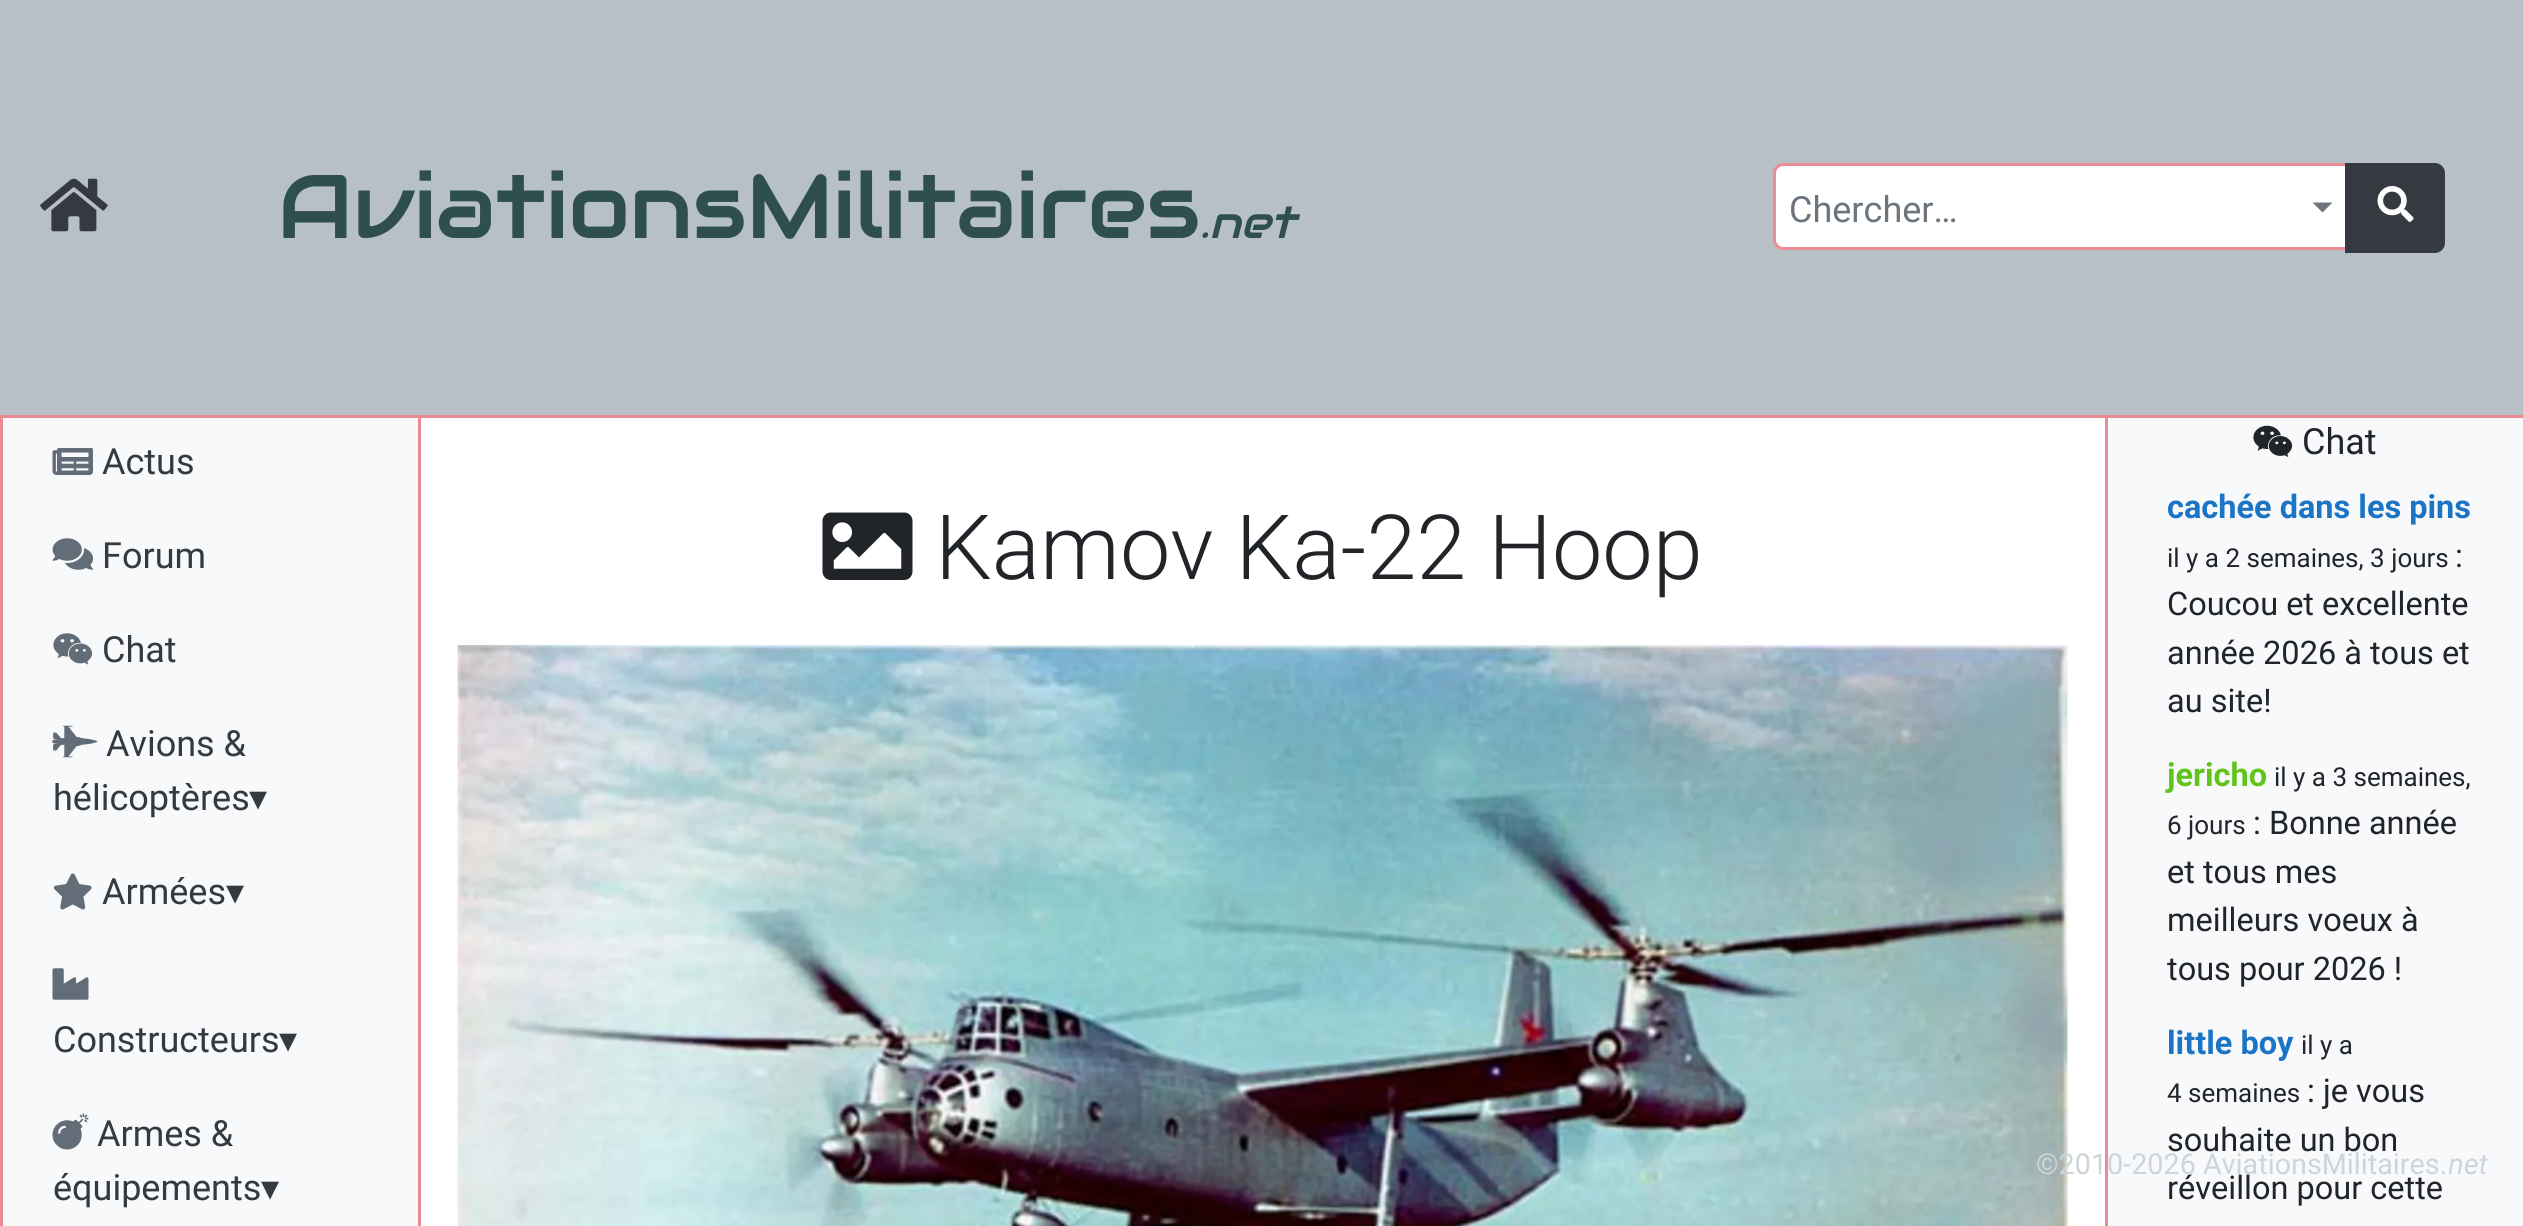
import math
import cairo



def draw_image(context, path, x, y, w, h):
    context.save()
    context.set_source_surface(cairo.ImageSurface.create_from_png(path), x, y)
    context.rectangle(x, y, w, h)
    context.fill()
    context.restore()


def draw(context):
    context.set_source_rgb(1, 1, 1)
    context.paint()
    context.set_source_rgb(183 / 255, 192 / 255, 196 / 255)
    context.rectangle(0, 0, 2523, 415)
    context.fill()
    context.set_source_rgb(235 / 255, 140 / 255, 149 / 255)
    context.rectangle(0, 415, 2523, 3)
    context.fill()
    draw_image(context, "images/1.png", 40, 178, 68, 54)
    context.set_source_rgb(1, 1, 1)
    context.new_path()
    context.move_to(1783, 164.5)
    context.line_to(2346.5, 164.5)
    context.line_to(2346.5, 248.5)
    context.line_to(1783, 248.5)
    context.curve_to(1778.5, 248.5, 1774.5, 244.5, 1774.5, 240)
    context.line_to(1774.5, 173)
    context.curve_to(1774.5, 168.5, 1778.5, 164.5, 1783, 164.5)
    context.close_path()
    context.fill_preserve()
    context.set_source_rgb(235 / 255, 140 / 255, 149 / 255)
    context.set_line_width(3)
    context.stroke()
    context.set_source_rgb(108 / 255, 117 / 255, 125 / 255)
    context.new_path()
    context.move_to(2312.5, 202.5)
    context.line_to(2332.5, 202.5)
    context.line_to(2322.5, 212.5)
    context.close_path()
    context.fill()
    context.set_source_rgb(52 / 255, 58 / 255, 64 / 255)
    context.new_path()
    context.move_to(2346.5, 164.5)
    context.line_to(2435, 164.5)
    context.curve_to(2439.5, 164.5, 2443.5, 168.5, 2443.5, 173)
    context.line_to(2443.5, 243)
    context.curve_to(2443.5, 247.5, 2439.5, 251.5, 2435, 251.5)
    context.line_to(2346.5, 251.5)
    context.close_path()
    context.fill_preserve()
    context.stroke()
    draw_image(context, "images/2.png", 2377, 186, 37, 36)
    context.set_source_rgb(248 / 255, 249 / 255, 250 / 255)
    context.rectangle(3, 418, 415, 808)
    context.fill()
    context.set_source_rgb(235 / 255, 140 / 255, 149 / 255)
    context.rectangle(418, 418, 3, 808)
    context.fill()
    context.rectangle(0, 418, 3, 808)
    context.fill()
    draw_image(context, "images/3.png", 52, 448, 41, 27)
    draw_image(context, "images/4.png", 52, 538, 42, 32)
    draw_image(context, "images/5.png", 53, 633, 40, 32)
    draw_image(context, "images/6.png", 52, 725, 46, 33)
    draw_image(context, "images/7.png", 53, 873, 39, 37)
    draw_image(context, "images/8.png", 52, 968, 37, 32)
    draw_image(context, "images/9.png", 52, 1113, 37, 37)
    draw_image(context, "images/10.png", 822, 512, 91, 68)
    draw_image(context, "images/11.png", 457, 645, 1611, 581)
    context.set_source_rgb(248 / 255, 249 / 255, 250 / 255)
    context.rectangle(2108, 418, 415, 808)
    context.fill()
    context.set_source_rgb(235 / 255, 140 / 255, 149 / 255)
    context.rectangle(2105, 418, 3, 808)
    context.fill()
    draw_image(context, "images/12.png", 2253, 425, 40, 33)
    context.select_font_face("Audiowide")
    context.set_font_size(90)
    context.set_source_rgb(47 / 255, 79 / 255, 79 / 255)
    context.move_to(278, 238)
    context.show_text("AviationsMilitaires")
    context.select_font_face("Audiowide", cairo.FontSlant.ITALIC)
    context.set_font_size(45)
    context.move_to(1200, 238)
    context.show_text(".net")
    context.select_font_face("Roboto")
    context.set_font_size(36)
    context.set_source_rgb(108 / 255, 117 / 255, 125 / 255)
    context.move_to(1789, 222)
    context.show_text("Chercher…")
    context.set_source_rgb(52 / 255, 58 / 255, 64 / 255)
    context.move_to(102, 474)
    context.show_text("Actus")
    context.move_to(102, 568)
    context.show_text("Forum")
    context.move_to(102, 662)
    context.show_text("Chat")
    context.move_to(106, 756)
    context.show_text("Avions &")
    context.move_to(53, 810)
    context.show_text("hélicoptères")
    context.select_font_face("DejaVu Sans")
    context.move_to(249, 810)
    context.show_text("▾")
    context.select_font_face("Roboto")
    context.move_to(102, 904)
    context.show_text("Armées")
    context.select_font_face("DejaVu Sans")
    context.move_to(226, 904)
    context.show_text("▾")
    context.select_font_face("Roboto")
    context.move_to(53, 1052)
    context.show_text("Constructeurs")
    context.select_font_face("DejaVu Sans")
    context.move_to(279, 1052)
    context.show_text("▾")
    context.select_font_face("Roboto")
    context.move_to(97, 1146)
    context.show_text("Armes &")
    context.move_to(53, 1200)
    context.show_text("équipements")
    context.select_font_face("DejaVu Sans")
    context.move_to(261, 1200)
    context.show_text("▾")
    context.select_font_face("Roboto Light")
    context.set_font_size(90)
    context.set_source_rgb(33 / 255, 37 / 255, 41 / 255)
    context.move_to(935, 579)
    context.show_text("Kamov Ka-22 Hoop")
    context.select_font_face("Roboto")
    context.set_font_size(36)
    context.move_to(2302, 454)
    context.show_text("Chat")
    context.select_font_face("Roboto", cairo.FontSlant.NORMAL, cairo.FontWeight.BOLD)
    context.set_font_size(32.5)
    context.set_source_rgb(27 / 255, 116 / 255, 196 / 255)
    context.move_to(2167, 518)
    context.show_text("cachée dans les pins")
    context.select_font_face("Roboto")
    context.set_font_size(26)
    context.set_source_rgb(33 / 255, 37 / 255, 41 / 255)
    context.move_to(2167, 567)
    context.show_text("il y a 2 semaines, 3 jours")
    context.set_font_size(32.5)
    context.move_to(2455, 567)
    context.show_text(":")
    context.move_to(2167, 615)
    context.show_text("Coucou et excellente")
    context.move_to(2167, 664)
    context.show_text("année 2026 à tous et")
    context.move_to(2167, 712)
    context.show_text("au site!")
    context.select_font_face("Roboto", cairo.FontSlant.NORMAL, cairo.FontWeight.BOLD)
    context.set_source_rgb(96 / 255, 196 / 255, 27 / 255)
    context.move_to(2167, 786)
    context.show_text("jericho")
    context.select_font_face("Roboto")
    context.set_font_size(26)
    context.set_source_rgb(33 / 255, 37 / 255, 41 / 255)
    context.move_to(2274, 786)
    context.show_text("il y a 3 semaines,")
    context.move_to(2167, 834)
    context.show_text("6 jours")
    context.set_font_size(32.5)
    context.move_to(2253, 834)
    context.show_text(": Bonne année")
    context.move_to(2167, 883)
    context.show_text("et tous mes")
    context.move_to(2167, 931)
    context.show_text("meilleurs voeux à")
    context.move_to(2167, 980)
    context.show_text("tous pour 2026 !")
    context.select_font_face("Roboto", cairo.FontSlant.NORMAL, cairo.FontWeight.BOLD)
    context.set_source_rgb(27 / 255, 116 / 255, 196 / 255)
    context.move_to(2167, 1054)
    context.show_text("little boy")
    context.select_font_face("Roboto")
    context.set_font_size(26)
    context.set_source_rgb(33 / 255, 37 / 255, 41 / 255)
    context.move_to(2301, 1054)
    context.show_text("il y a")
    context.move_to(2167, 1102)
    context.show_text("4 semaines")
    context.set_font_size(32.5)
    context.move_to(2307, 1102)
    context.show_text(": je vous")
    context.move_to(2167, 1151)
    context.show_text("souhaite un bon")
    context.move_to(2167, 1199)
    context.show_text("réveillon pour cette")
    context.set_font_size(28.75)
    context.set_source_rgb(206 / 255, 212 / 255, 218 / 255)
    context.move_to(2036, 1174)
    context.show_text("©2010-2026 AviationsMilitaires")
    context.select_font_face("Roboto", cairo.FontSlant.ITALIC)
    context.move_to(2441, 1174)
    context.show_text(".net")


surface = cairo.ImageSurface(cairo.Format.RGB24, 2523, 1226)
context = cairo.Context(surface)
options = cairo.FontOptions()
options.set_hint_metrics(cairo.HintMetrics.OFF)
options.set_hint_style(cairo.HintStyle.NONE)
context.set_font_options(options)
context.set_miter_limit(4)
draw(context)
surface.write_to_png("out.png")
